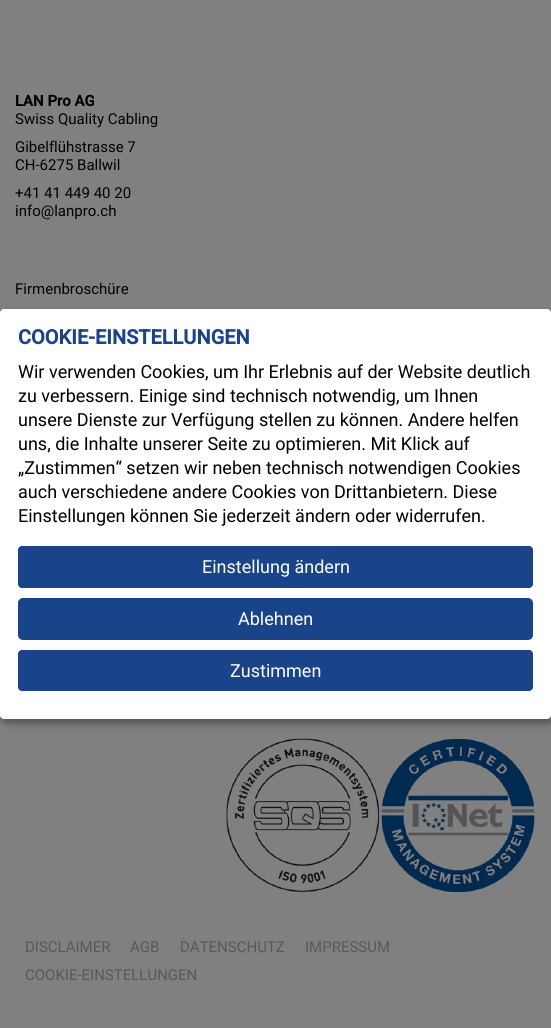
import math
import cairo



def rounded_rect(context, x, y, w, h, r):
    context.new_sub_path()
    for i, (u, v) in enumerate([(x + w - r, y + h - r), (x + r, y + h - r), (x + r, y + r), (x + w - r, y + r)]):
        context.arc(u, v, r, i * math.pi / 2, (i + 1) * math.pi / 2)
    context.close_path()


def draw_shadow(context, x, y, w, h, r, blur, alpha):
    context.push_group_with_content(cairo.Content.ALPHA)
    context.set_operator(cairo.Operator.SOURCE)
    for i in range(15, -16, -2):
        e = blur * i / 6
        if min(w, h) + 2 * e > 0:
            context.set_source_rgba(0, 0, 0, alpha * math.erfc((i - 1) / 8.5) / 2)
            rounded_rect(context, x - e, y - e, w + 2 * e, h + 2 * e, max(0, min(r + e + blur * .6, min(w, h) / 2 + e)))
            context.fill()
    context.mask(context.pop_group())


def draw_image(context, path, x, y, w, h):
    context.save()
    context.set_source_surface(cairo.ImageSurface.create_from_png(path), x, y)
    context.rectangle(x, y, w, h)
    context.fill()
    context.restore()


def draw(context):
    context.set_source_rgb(128 / 255, 128 / 255, 128 / 255)
    context.paint()
    draw_image(context, "images/1.png", 226, 738, 154, 154)
    draw_image(context, "images/2.png", 381, 738, 154, 155)
    context.set_source_rgb(0, 0, 0)
    draw_shadow(context, 5, 314, 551, 410, 4, 5, 0.19)
    draw_shadow(context, 0, 313, 551, 410, 4, 3, 0.2)
    context.set_source_rgb(1, 1, 1)
    rounded_rect(context, 0, 309, 551, 410, 4)
    context.fill()
    context.set_source_rgb(26 / 255, 68 / 255, 137 / 255)
    rounded_rect(context, 18, 546, 515, 42, 4)
    context.fill()
    rounded_rect(context, 18, 598, 515, 42, 5)
    context.fill()
    rounded_rect(context, 18, 650, 515, 41, 4)
    context.fill()
    context.select_font_face("Roboto", cairo.FontSlant.NORMAL, cairo.FontWeight.BOLD)
    context.set_font_size(15)
    context.set_source_rgb(0, 0, 0)
    context.move_to(15, 106)
    context.show_text("LAN Pro AG")
    context.select_font_face("Roboto")
    context.move_to(15, 124)
    context.show_text("Swiss Quality Cabling")
    context.move_to(15, 152)
    context.show_text("Gibelflühstrasse 7")
    context.move_to(15, 170)
    context.show_text("CH-6275 Ballwil")
    context.move_to(15, 198)
    context.show_text("+41 41 449 40 20")
    context.move_to(15, 216)
    context.show_text("info@lanpro.ch")
    context.move_to(15, 294)
    context.show_text("Firmenbroschüre")
    context.set_source_rgb(88 / 255, 88 / 255, 90 / 255)
    context.move_to(25, 952)
    context.show_text("DISCLAIMER")
    context.move_to(130, 952)
    context.show_text("AGB")
    context.move_to(180, 952)
    context.show_text("DATENSCHUTZ")
    context.move_to(305, 952)
    context.show_text("IMPRESSUM")
    context.move_to(25, 980)
    context.show_text("COOKIE-EINSTELLUNGEN")
    context.select_font_face("Roboto", cairo.FontSlant.NORMAL, cairo.FontWeight.BOLD)
    context.set_font_size(20)
    context.set_source_rgb(26 / 255, 68 / 255, 137 / 255)
    context.move_to(18, 344)
    context.show_text("COOKIE-EINSTELLUNGEN")
    context.select_font_face("Roboto")
    context.set_font_size(18)
    context.set_source_rgb(0, 0, 0)
    context.move_to(18, 378)
    context.show_text("Wir verwenden Cookies, um Ihr Erlebnis auf der Website deutlich")
    context.move_to(18, 402)
    context.show_text("zu verbessern. Einige sind technisch notwendig, um Ihnen")
    context.move_to(18, 426)
    context.show_text("unsere Dienste zur Verfügung stellen zu können. Andere helfen")
    context.move_to(18, 450)
    context.show_text("uns, die Inhalte unserer Seite zu optimieren. Mit Klick auf")
    context.move_to(18, 474)
    context.show_text("„Zustimmen“ setzen wir neben technisch notwendigen Cookies")
    context.move_to(18, 498)
    context.show_text("auch verschiedene andere Cookies von Drittanbietern. Diese")
    context.move_to(18, 522)
    context.show_text("Einstellungen können Sie jederzeit ändern oder widerrufen.")
    context.set_source_rgb(1, 1, 1)
    context.move_to(202, 573)
    context.show_text("Einstellung ändern")
    context.move_to(238, 625)
    context.show_text("Ablehnen")
    context.move_to(230, 677)
    context.show_text("Zustimmen")


surface = cairo.ImageSurface(cairo.Format.RGB24, 551, 1028)
context = cairo.Context(surface)
options = cairo.FontOptions()
options.set_hint_metrics(cairo.HintMetrics.OFF)
options.set_hint_style(cairo.HintStyle.NONE)
context.set_font_options(options)
context.set_miter_limit(4)
draw(context)
surface.write_to_png("out.png")
